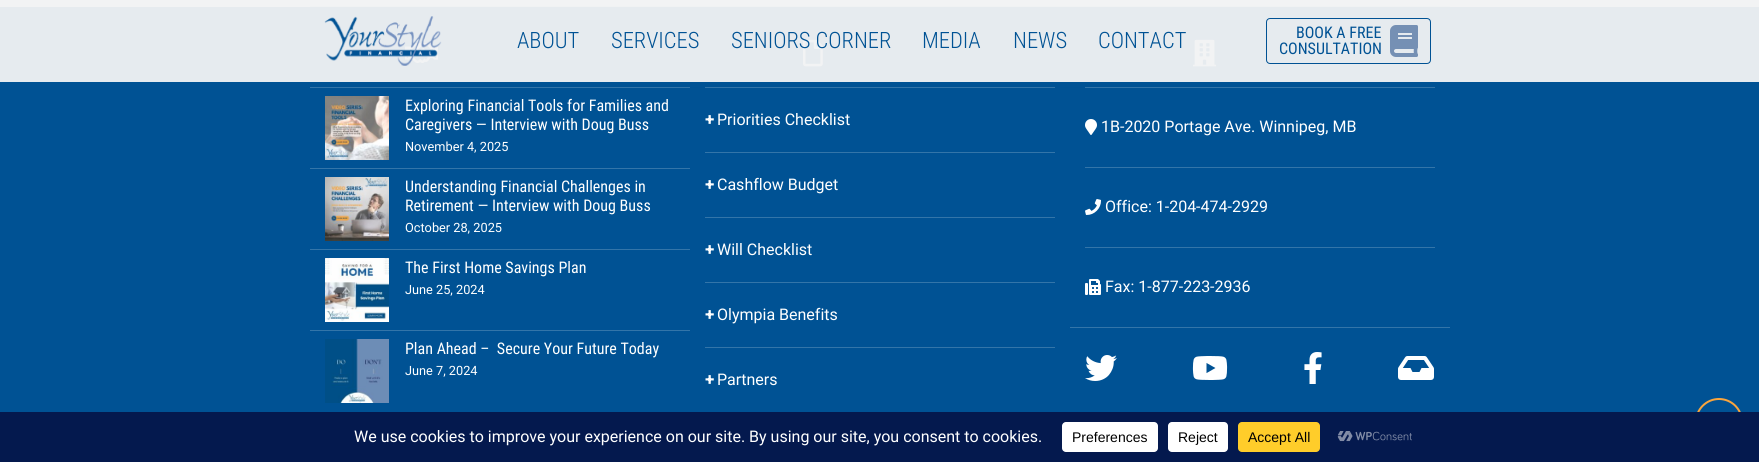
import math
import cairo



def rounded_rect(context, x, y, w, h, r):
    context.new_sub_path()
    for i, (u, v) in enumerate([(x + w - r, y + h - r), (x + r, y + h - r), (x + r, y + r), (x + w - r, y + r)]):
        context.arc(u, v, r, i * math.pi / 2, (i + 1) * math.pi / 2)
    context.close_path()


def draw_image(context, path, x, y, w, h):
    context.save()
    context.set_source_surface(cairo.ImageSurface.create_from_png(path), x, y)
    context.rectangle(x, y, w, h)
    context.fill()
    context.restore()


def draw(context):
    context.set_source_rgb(0, 82 / 255, 148 / 255)
    context.paint()
    context.set_source_rgb(1, 1, 1)
    context.rectangle(0, 0, 1759, 7)
    context.fill()
    context.set_source_rgb(222 / 255, 226 / 255, 230 / 255)
    context.rectangle(310, 6, 1140, 1)
    context.fill()
    draw_image(context, "images/3.png", 405, 43, 33, 20)
    draw_image(context, "images/8.png", 803, 39, 20, 28)
    draw_image(context, "images/9.png", 1193, 39, 24, 28)
    context.set_source_rgba(242 / 255, 243 / 255, 244 / 255, 0.95)
    context.rectangle(0, 0, 1759, 82)
    context.fill()
    draw_image(context, "images/1.png", 324, 16, 118, 50)
    rounded_rect(context, 1266.5, 18.5, 164, 45, 3.5)
    context.set_source_rgb(0, 82 / 255, 148 / 255)
    context.set_line_width(1)
    context.stroke()
    draw_image(context, "images/2.png", 1390, 25, 28, 32)
    context.set_source_rgb(51 / 255, 117 / 255, 169 / 255)
    context.rectangle(310, 87, 380, 1)
    context.fill()
    draw_image(context, "images/4.png", 325, 96, 64, 64)
    context.rectangle(310, 168, 380, 1)
    context.fill()
    draw_image(context, "images/5.png", 325, 177, 64, 64)
    context.rectangle(310, 249, 380, 1)
    context.fill()
    draw_image(context, "images/6.png", 325, 258, 64, 64)
    context.rectangle(310, 330, 380, 1)
    context.fill()
    draw_image(context, "images/7.png", 325, 339, 64, 64)
    context.rectangle(705, 87, 350, 1)
    context.fill()
    context.rectangle(705, 152, 350, 1)
    context.fill()
    context.rectangle(705, 217, 350, 1)
    context.fill()
    context.rectangle(705, 282, 350, 1)
    context.fill()
    context.rectangle(705, 347, 350, 1)
    context.fill()
    context.rectangle(1085, 87, 350, 1)
    context.fill()
    draw_image(context, "images/10.png", 1085, 119, 12, 16)
    context.rectangle(1085, 167, 350, 1)
    context.fill()
    draw_image(context, "images/11.png", 1085, 199, 16, 16)
    context.rectangle(1085, 247, 350, 1)
    context.fill()
    draw_image(context, "images/12.png", 1085, 279, 16, 16)
    context.rectangle(1070, 327, 380, 1)
    context.fill()
    draw_image(context, "images/13.png", 1085, 355, 32, 26)
    draw_image(context, "images/14.png", 1192, 356, 36, 24)
    draw_image(context, "images/15.png", 1304, 352, 18, 32)
    draw_image(context, "images/16.png", 1398, 356, 36, 24)
    context.arc(1719, 422, 23, 0, 2 * math.pi)
    context.set_source_rgb(250 / 255, 165 / 255, 61 / 255)
    context.set_line_width(2)
    context.stroke()
    context.set_source_rgb(4 / 255, 25 / 255, 78 / 255)
    context.rectangle(0, 412, 1759, 50)
    context.fill()
    context.set_source_rgb(1, 1, 1)
    rounded_rect(context, 1062, 422, 96, 30, 4)
    context.fill()
    rounded_rect(context, 1168, 422, 60, 30, 4)
    context.fill()
    context.set_source_rgb(1, 205 / 255, 42 / 255)
    rounded_rect(context, 1238, 422, 82, 30, 4)
    context.fill()
    draw_image(context, "images/17.png", 1337, 431, 75, 11)
    context.select_font_face("Roboto Condensed Light")
    context.set_font_size(22.5)
    context.set_source_rgb(0, 82 / 255, 148 / 255)
    context.move_to(517, 48)
    context.show_text("ABOUT")
    context.move_to(611, 48)
    context.show_text("SERVICES")
    context.move_to(731, 48)
    context.show_text("SENIORS CORNER")
    context.move_to(922, 48)
    context.show_text("MEDIA")
    context.move_to(1013, 48)
    context.show_text("NEWS")
    context.move_to(1098, 48)
    context.show_text("CONTACT")
    context.select_font_face("Roboto Condensed")
    context.set_font_size(16)
    context.move_to(1296, 38)
    context.show_text("BOOK A FREE")
    context.move_to(1279, 54)
    context.show_text("CONSULTATION")
    context.set_source_rgb(1, 1, 1)
    context.move_to(405, 111)
    context.show_text("Exploring Financial Tools for Families and")
    context.move_to(405, 130)
    context.show_text("Caregivers — Interview with Doug Buss")
    context.select_font_face("Roboto")
    context.set_font_size(12.75)
    context.move_to(405, 151)
    context.show_text("November 4, 2025")
    context.select_font_face("Roboto Condensed")
    context.set_font_size(16)
    context.move_to(405, 192)
    context.show_text("Understanding Financial Challenges in")
    context.move_to(405, 211)
    context.show_text("Retirement — Interview with Doug Buss")
    context.select_font_face("Roboto")
    context.set_font_size(12.75)
    context.move_to(405, 232)
    context.show_text("October 28, 2025")
    context.select_font_face("Roboto Condensed")
    context.set_font_size(16)
    context.move_to(405, 273)
    context.show_text("The First Home Savings Plan")
    context.select_font_face("Roboto")
    context.set_font_size(12.75)
    context.move_to(405, 294)
    context.show_text("June 25, 2024")
    context.select_font_face("Roboto Condensed")
    context.set_font_size(16)
    context.move_to(405, 354)
    context.show_text("Plan Ahead –  Secure Your Future Today")
    context.select_font_face("Roboto")
    context.set_font_size(12.75)
    context.move_to(405, 375)
    context.show_text("June 7, 2024")
    context.select_font_face("Roboto", cairo.FontSlant.NORMAL, cairo.FontWeight.BOLD)
    context.set_font_size(16)
    context.move_to(705, 125)
    context.show_text("+")
    context.select_font_face("Roboto")
    context.move_to(717, 125)
    context.show_text("Priorities Checklist")
    context.select_font_face("Roboto", cairo.FontSlant.NORMAL, cairo.FontWeight.BOLD)
    context.move_to(705, 190)
    context.show_text("+")
    context.select_font_face("Roboto")
    context.move_to(717, 190)
    context.show_text("Cashflow Budget")
    context.select_font_face("Roboto", cairo.FontSlant.NORMAL, cairo.FontWeight.BOLD)
    context.move_to(705, 255)
    context.show_text("+")
    context.select_font_face("Roboto")
    context.move_to(717, 255)
    context.show_text("Will Checklist")
    context.select_font_face("Roboto", cairo.FontSlant.NORMAL, cairo.FontWeight.BOLD)
    context.move_to(705, 320)
    context.show_text("+")
    context.select_font_face("Roboto")
    context.move_to(717, 320)
    context.show_text("Olympia Benefits")
    context.select_font_face("Roboto", cairo.FontSlant.NORMAL, cairo.FontWeight.BOLD)
    context.move_to(705, 385)
    context.show_text("+")
    context.select_font_face("Roboto")
    context.move_to(717, 385)
    context.show_text("Partners")
    context.move_to(1101, 132)
    context.show_text("1B-2020 Portage Ave. Winnipeg, MB")
    context.move_to(1105, 212)
    context.show_text("Office: 1-204-474-2929")
    context.move_to(1105, 292)
    context.show_text("Fax: 1-877-223-2936")
    context.move_to(354, 442)
    context.show_text("We use cookies to improve your experience on our site. By using our site, you consent to cookies.")
    context.select_font_face("Liberation Sans")
    context.set_font_size(14)
    context.set_source_rgb(0, 0, 0)
    context.move_to(1072, 442)
    context.show_text("Preferences")
    context.move_to(1178, 442)
    context.show_text("Reject")
    context.move_to(1248, 442)
    context.show_text("Accept All")


surface = cairo.ImageSurface(cairo.Format.RGB24, 1759, 462)
context = cairo.Context(surface)
options = cairo.FontOptions()
options.set_hint_metrics(cairo.HintMetrics.OFF)
options.set_hint_style(cairo.HintStyle.NONE)
context.set_font_options(options)
context.set_miter_limit(4)
draw(context)
surface.write_to_png("out.png")
